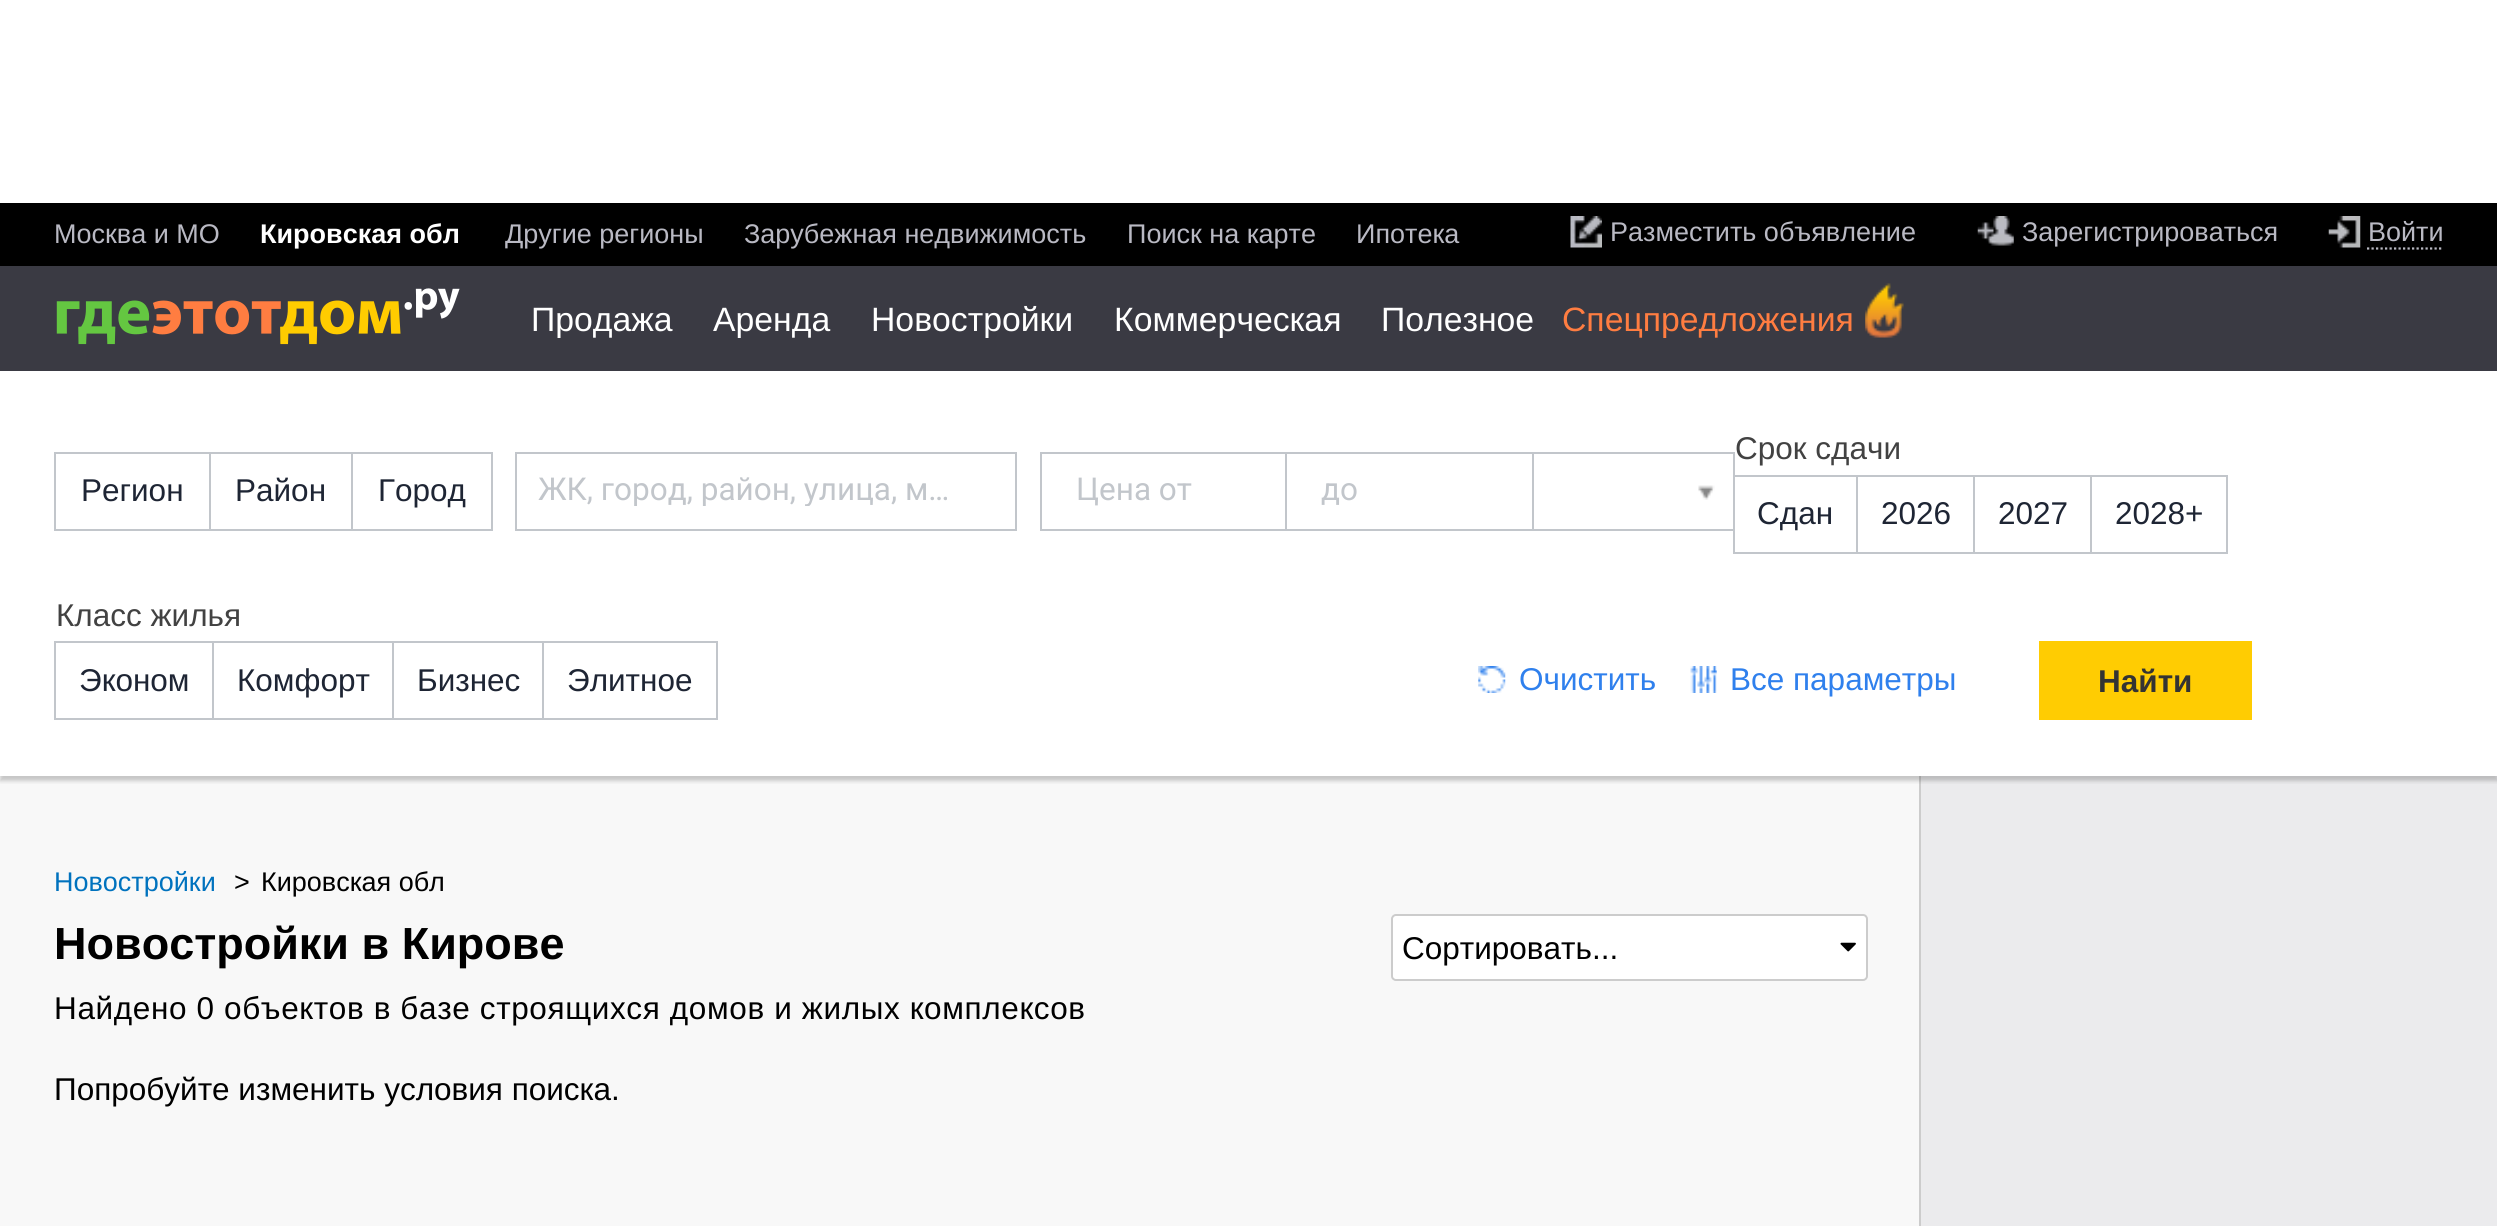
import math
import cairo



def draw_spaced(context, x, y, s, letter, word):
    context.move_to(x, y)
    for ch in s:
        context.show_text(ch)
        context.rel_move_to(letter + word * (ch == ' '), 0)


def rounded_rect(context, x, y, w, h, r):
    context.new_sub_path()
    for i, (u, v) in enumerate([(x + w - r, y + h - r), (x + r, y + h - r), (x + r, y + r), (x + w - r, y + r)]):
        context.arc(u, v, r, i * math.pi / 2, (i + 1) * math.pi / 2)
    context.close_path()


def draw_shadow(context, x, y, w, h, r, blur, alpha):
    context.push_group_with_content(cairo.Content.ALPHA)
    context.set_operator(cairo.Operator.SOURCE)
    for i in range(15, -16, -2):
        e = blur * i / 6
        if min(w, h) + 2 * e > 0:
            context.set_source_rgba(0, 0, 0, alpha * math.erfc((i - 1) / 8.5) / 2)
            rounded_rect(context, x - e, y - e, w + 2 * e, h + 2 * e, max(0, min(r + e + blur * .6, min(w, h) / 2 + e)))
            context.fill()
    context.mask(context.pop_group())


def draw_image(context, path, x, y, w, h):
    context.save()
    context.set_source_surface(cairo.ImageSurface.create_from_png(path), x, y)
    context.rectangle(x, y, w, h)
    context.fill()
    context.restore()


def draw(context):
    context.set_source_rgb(1, 1, 1)
    context.paint()
    context.set_source_rgb(248 / 255, 248 / 255, 248 / 255)
    context.rectangle(0, 776, 1919, 450)
    context.fill()
    context.set_source_rgb(235 / 255, 235 / 255, 237 / 255)
    context.rectangle(1921, 776, 576, 450)
    context.fill()
    context.set_source_rgb(204 / 255, 204 / 255, 204 / 255)
    context.rectangle(1919, 776, 2, 450)
    context.fill()
    context.save()
    context.rectangle(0, 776, 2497, 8)
    context.clip()
    context.set_source_rgb(0, 0, 0)
    draw_shadow(context, 0, 376, 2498, 405, 0, 2, 0.2)
    context.restore()
    context.set_source_rgb(58 / 255, 58 / 255, 67 / 255)
    context.rectangle(0, 266, 2497, 105)
    context.fill()
    context.set_source_rgb(0, 0, 0)
    context.rectangle(0, 203, 2497, 63)
    context.fill()
    draw_image(context, "images/1.png", 1570, 216, 32, 32)
    draw_image(context, "images/2.png", 1977, 216, 37, 30)
    draw_image(context, "images/3.png", 2328, 216, 33, 32)
    context.new_path()
    context.move_to(2367, 248.5)
    context.line_to(2443.5, 248.5)
    context.set_source_rgb(185 / 255, 185 / 255, 195 / 255)
    context.set_line_width(2.2)
    context.set_dash([2.25, 2.25])
    context.stroke()
    draw_image(context, "images/4.png", 56, 288, 404, 57)
    draw_image(context, "images/5.png", 1865, 283, 39, 55)
    context.rectangle(55, 453, 156, 77)
    context.set_source_rgb(194 / 255, 198 / 255, 203 / 255)
    context.set_line_width(2)
    context.set_dash([])
    context.stroke()
    context.set_source_rgb(1, 1, 1)
    context.rectangle(211, 454, 1, 75)
    context.fill()
    context.rectangle(210, 453, 142, 77)
    context.set_source_rgb(194 / 255, 198 / 255, 203 / 255)
    context.stroke()
    context.rectangle(352, 453, 140, 77)
    context.stroke()
    context.rectangle(516, 453, 500, 77)
    context.stroke()
    context.rectangle(1040, 452, 492, 2)
    context.fill()
    context.rectangle(1040, 529, 492, 2)
    context.fill()
    context.rectangle(1040, 452, 2, 79)
    context.fill()
    context.rectangle(1285, 452, 2, 79)
    context.fill()
    draw_image(context, "images/6.png", 1698, 485, 17, 15)
    context.rectangle(1533, 453, 201, 77)
    context.stroke()
    context.rectangle(1734, 476, 124, 77)
    context.stroke()
    context.set_source_rgb(1, 1, 1)
    context.rectangle(1858, 477, 1, 75)
    context.fill()
    context.rectangle(1857, 476, 118, 77)
    context.set_source_rgb(194 / 255, 198 / 255, 203 / 255)
    context.stroke()
    context.set_source_rgb(1, 1, 1)
    context.rectangle(1975, 477, 1, 75)
    context.fill()
    context.rectangle(1974, 476, 118, 77)
    context.set_source_rgb(194 / 255, 198 / 255, 203 / 255)
    context.stroke()
    context.set_source_rgb(1, 1, 1)
    context.rectangle(2092, 477, 1, 75)
    context.fill()
    context.rectangle(2091, 476, 136, 77)
    context.set_source_rgb(194 / 255, 198 / 255, 203 / 255)
    context.stroke()
    context.rectangle(55, 642, 158, 77)
    context.stroke()
    context.rectangle(213, 642, 180, 77)
    context.stroke()
    context.rectangle(393, 642, 151, 77)
    context.stroke()
    context.set_source_rgb(1, 1, 1)
    context.rectangle(544, 643, 1, 75)
    context.fill()
    context.rectangle(543, 642, 174, 77)
    context.set_source_rgb(194 / 255, 198 / 255, 203 / 255)
    context.stroke()
    draw_image(context, "images/7.png", 1478, 666, 28, 27)
    draw_image(context, "images/8.png", 1690, 666, 27, 27)
    context.set_source_rgb(1, 204 / 255, 2 / 255)
    context.rectangle(2039, 641, 213, 79)
    context.fill()
    context.set_source_rgb(1, 1, 1)
    rounded_rect(context, 1392, 915, 475, 65, 4)
    context.fill_preserve()
    context.set_source_rgb(204 / 255, 204 / 255, 204 / 255)
    context.stroke()
    draw_image(context, "images/9.png", 1840, 942, 16, 10)
    context.select_font_face("Liberation Sans")
    context.set_font_size(27)
    context.set_source_rgb(185 / 255, 185 / 255, 195 / 255)
    context.move_to(54, 243)
    context.show_text("Москва и МО")
    context.select_font_face("Liberation Sans", cairo.FontSlant.NORMAL, cairo.FontWeight.BOLD)
    context.set_source_rgb(1, 1, 1)
    context.move_to(260, 243)
    context.show_text("Кировская обл")
    context.select_font_face("Liberation Sans")
    context.set_source_rgb(185 / 255, 185 / 255, 195 / 255)
    context.move_to(505, 243)
    context.show_text("Другие регионы")
    context.move_to(744, 243)
    context.show_text("Зарубежная недвижимость")
    context.move_to(1127, 243)
    context.show_text("Поиск на карте")
    context.move_to(1356, 243)
    context.show_text("Ипотека")
    context.move_to(1610, 241)
    context.show_text("Разместить объявление")
    context.move_to(2022, 241)
    context.show_text("Зарегистрироваться")
    context.move_to(2368, 241)
    context.show_text("Войти")
    context.set_font_size(33.75)
    context.set_source_rgb(1, 1, 1)
    context.move_to(531, 331)
    context.show_text("Продажа")
    context.move_to(713, 331)
    context.show_text("Аренда")
    context.move_to(871, 331)
    context.show_text("Новостройки")
    context.move_to(1114, 331)
    context.show_text("Коммерческая")
    context.move_to(1381, 331)
    context.show_text("Полезное")
    context.set_source_rgb(1, 125 / 255, 65 / 255)
    context.move_to(1562, 331)
    context.show_text("Спецпредложения")
    context.set_font_size(31.5)
    context.set_source_rgb(30 / 255, 37 / 255, 52 / 255)
    context.move_to(81, 501)
    context.show_text("Регион")
    context.move_to(235, 501)
    context.show_text("Район")
    context.move_to(378, 501)
    context.show_text("Город")
    context.save()
    context.rectangle(538, 470, 421, 36)
    context.clip()
    context.select_font_face("Roboto")
    context.set_source_rgb(194 / 255, 198 / 255, 203 / 255)
    context.move_to(538, 500)
    context.show_text("ЖК, город, район, улица, м…")
    context.restore()
    context.select_font_face("Roboto")
    context.set_source_rgb(194 / 255, 198 / 255, 203 / 255)
    context.move_to(1076, 500)
    context.show_text("Цена от")
    context.move_to(1321, 500)
    context.show_text("до")
    context.select_font_face("Liberation Sans")
    context.set_source_rgb(66 / 255, 66 / 255, 66 / 255)
    context.move_to(1735, 459)
    context.show_text("Срок сдачи")
    context.set_source_rgb(30 / 255, 37 / 255, 52 / 255)
    context.move_to(1757, 524)
    context.show_text("Сдан")
    context.move_to(1881, 524)
    context.show_text("2026")
    context.move_to(1998, 524)
    context.show_text("2027")
    context.move_to(2115, 524)
    context.show_text("2028+")
    context.set_source_rgb(66 / 255, 66 / 255, 66 / 255)
    context.move_to(56, 626)
    context.show_text("Класс жилья")
    context.set_source_rgb(30 / 255, 37 / 255, 52 / 255)
    context.move_to(79, 691)
    context.show_text("Эконом")
    context.move_to(237, 691)
    context.show_text("Комфорт")
    context.move_to(417, 691)
    context.show_text("Бизнес")
    context.move_to(567, 691)
    context.show_text("Элитное")
    context.set_source_rgb(47 / 255, 128 / 255, 237 / 255)
    context.move_to(1519, 690)
    context.show_text("Очистить")
    context.move_to(1730, 690)
    context.show_text("Все параметры")
    context.select_font_face("Liberation Sans", cairo.FontSlant.NORMAL, cairo.FontWeight.BOLD)
    context.set_source_rgb(51 / 255, 51 / 255, 51 / 255)
    context.move_to(2098, 692)
    context.show_text("Найти")
    context.select_font_face("Liberation Sans")
    context.set_font_size(27)
    context.set_source_rgb(0, 114 / 255, 190 / 255)
    context.move_to(54, 891)
    context.show_text("Новостройки")
    context.set_source_rgb(0, 0, 0)
    context.move_to(234, 891)
    context.show_text(">")
    context.move_to(261, 891)
    context.show_text("Кировская обл")
    context.select_font_face("Liberation Sans", cairo.FontSlant.NORMAL, cairo.FontWeight.BOLD)
    context.set_font_size(45)
    context.move_to(54, 959)
    context.show_text("Новостройки в Кирове")
    context.select_font_face("Liberation Sans")
    context.set_font_size(31.5)
    context.move_to(1402, 959)
    context.show_text("Сортировать...")
    draw_spaced(context, 54, 1019, "Найдено 0 объектов в базе строящихся домов и жилых комплексов", 0.63, 0)
    context.move_to(54, 1100)
    context.show_text("Попробуйте изменить условия поиска.")


surface = cairo.ImageSurface(cairo.Format.RGB24, 2497, 1226)
context = cairo.Context(surface)
options = cairo.FontOptions()
options.set_hint_metrics(cairo.HintMetrics.OFF)
options.set_hint_style(cairo.HintStyle.NONE)
context.set_font_options(options)
context.set_miter_limit(4)
draw(context)
surface.write_to_png("out.png")
